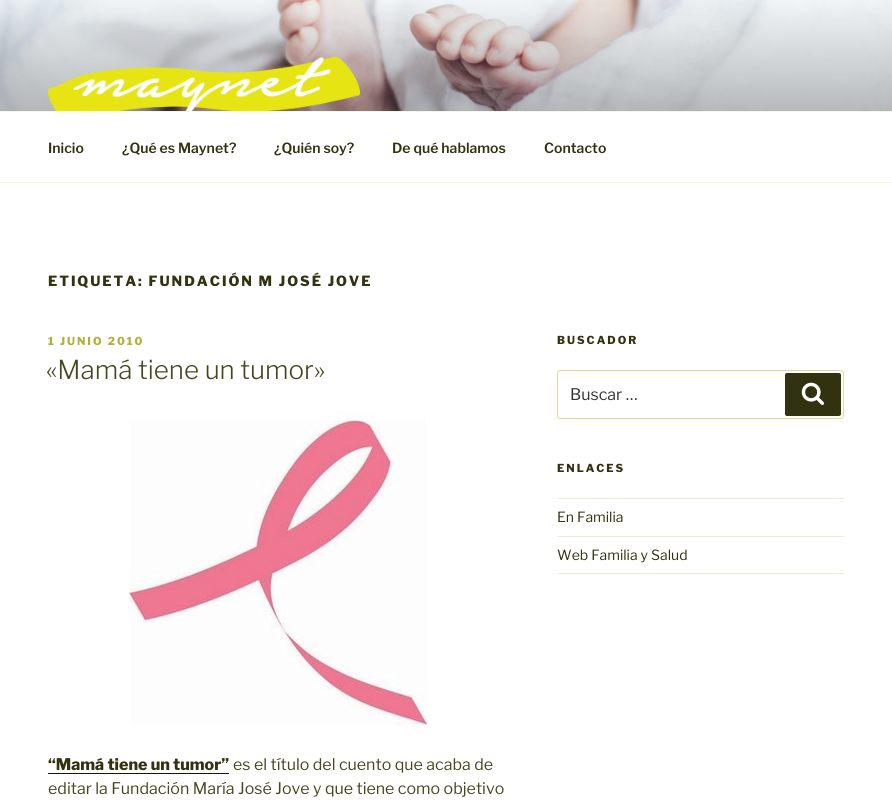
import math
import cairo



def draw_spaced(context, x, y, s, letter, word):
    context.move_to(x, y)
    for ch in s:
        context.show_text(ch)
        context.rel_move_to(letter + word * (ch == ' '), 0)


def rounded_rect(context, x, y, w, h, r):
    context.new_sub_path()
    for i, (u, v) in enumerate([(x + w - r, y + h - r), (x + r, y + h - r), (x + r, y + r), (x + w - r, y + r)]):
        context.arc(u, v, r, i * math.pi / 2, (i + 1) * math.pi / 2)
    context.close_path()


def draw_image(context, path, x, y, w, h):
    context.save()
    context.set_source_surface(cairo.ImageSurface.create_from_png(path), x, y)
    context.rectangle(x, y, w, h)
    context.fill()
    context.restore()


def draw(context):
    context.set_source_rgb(1, 1, 1)
    context.paint()
    draw_image(context, "images/1.png", 0, 0, 892, 111)
    draw_image(context, "images/2.png", 48, 56, 312, 55)
    context.set_source_rgb(246 / 255, 246 / 255, 228 / 255)
    context.rectangle(0, 111, 892, 1)
    context.fill()
    context.rectangle(0, 182, 892, 1)
    context.fill()
    draw_image(context, "images/3.png", 128, 411, 302, 318)
    context.set_source_rgb(23 / 255, 23 / 255, 8 / 255)
    context.rectangle(48, 773, 181, 1)
    context.fill()
    rounded_rect(context, 557.5, 370.5, 286, 48, 2.5)
    context.set_source_rgb(221 / 255, 221 / 255, 152 / 255)
    context.set_line_width(1)
    context.stroke()
    context.set_source_rgb(50 / 255, 50 / 255, 17 / 255)
    rounded_rect(context, 785, 373, 56, 43, 2)
    context.fill()
    draw_image(context, "images/4.png", 801, 382, 23, 23)
    context.set_source_rgb(238 / 255, 238 / 255, 205 / 255)
    context.rectangle(557, 498, 287, 1)
    context.fill()
    context.rectangle(557, 536, 287, 1)
    context.fill()
    context.rectangle(557, 573, 287, 1)
    context.fill()
    context.select_font_face("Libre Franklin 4 Thin")
    context.set_font_size(14)
    context.set_source_rgb(50 / 255, 50 / 255, 17 / 255)
    context.move_to(48, 153)
    context.show_text("Inicio")
    context.move_to(122, 153)
    context.show_text("¿Qué es Maynet?")
    context.move_to(274, 153)
    context.show_text("¿Quién soy?")
    context.move_to(392, 153)
    context.show_text("De qué hablamos")
    context.move_to(544, 153)
    context.show_text("Contacto")
    context.select_font_face("Libre Franklin Thin")
    draw_spaced(context, 48, 286, "ETIQUETA: FUNDACIÓN M JOSÉ JOVE", 1.95, 0)
    context.set_font_size(11)
    context.set_source_rgb(176 / 255, 176 / 255, 59 / 255)
    draw_spaced(context, 48, 345, "1 JUNIO 2010", 2, 0)
    context.select_font_face("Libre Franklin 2 Thin")
    context.set_font_size(26)
    context.set_source_rgb(71 / 255, 71 / 255, 31 / 255)
    context.move_to(46, 379)
    context.show_text("«Mamá tiene un tumor»")
    context.select_font_face("Libre Franklin Thin")
    context.set_font_size(16)
    context.set_source_rgb(50 / 255, 50 / 255, 17 / 255)
    context.move_to(48, 770)
    context.show_text("“Mamá tiene un tumor”")
    context.select_font_face("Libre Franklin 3 Thin")
    context.set_source_rgb(71 / 255, 71 / 255, 31 / 255)
    context.move_to(233, 770)
    context.show_text("es el título del cuento que acaba de")
    context.move_to(48, 794)
    context.show_text("editar la Fundación María José Jove y que tiene como objetivo")
    context.select_font_face("Libre Franklin Thin")
    context.set_font_size(11)
    context.set_source_rgb(50 / 255, 50 / 255, 17 / 255)
    draw_spaced(context, 557, 344, "BUSCADOR", 2, 0)
    context.select_font_face("Libre Franklin 3 Thin")
    context.set_font_size(16)
    context.set_source_rgb(51 / 255, 51 / 255, 51 / 255)
    context.move_to(570, 400)
    context.show_text("Buscar …")
    context.select_font_face("Libre Franklin Thin")
    context.set_font_size(11)
    context.set_source_rgb(50 / 255, 50 / 255, 17 / 255)
    draw_spaced(context, 557, 472, "ENLACES", 2, 0)
    context.select_font_face("Libre Franklin 3 Thin")
    context.set_font_size(14)
    context.move_to(557, 522)
    context.show_text("En Familia")
    context.move_to(557, 560)
    context.show_text("Web Familia y Salud")


surface = cairo.ImageSurface(cairo.Format.RGB24, 892, 810)
context = cairo.Context(surface)
options = cairo.FontOptions()
options.set_hint_metrics(cairo.HintMetrics.OFF)
options.set_hint_style(cairo.HintStyle.NONE)
context.set_font_options(options)
context.set_miter_limit(4)
draw(context)
surface.write_to_png("out.png")
